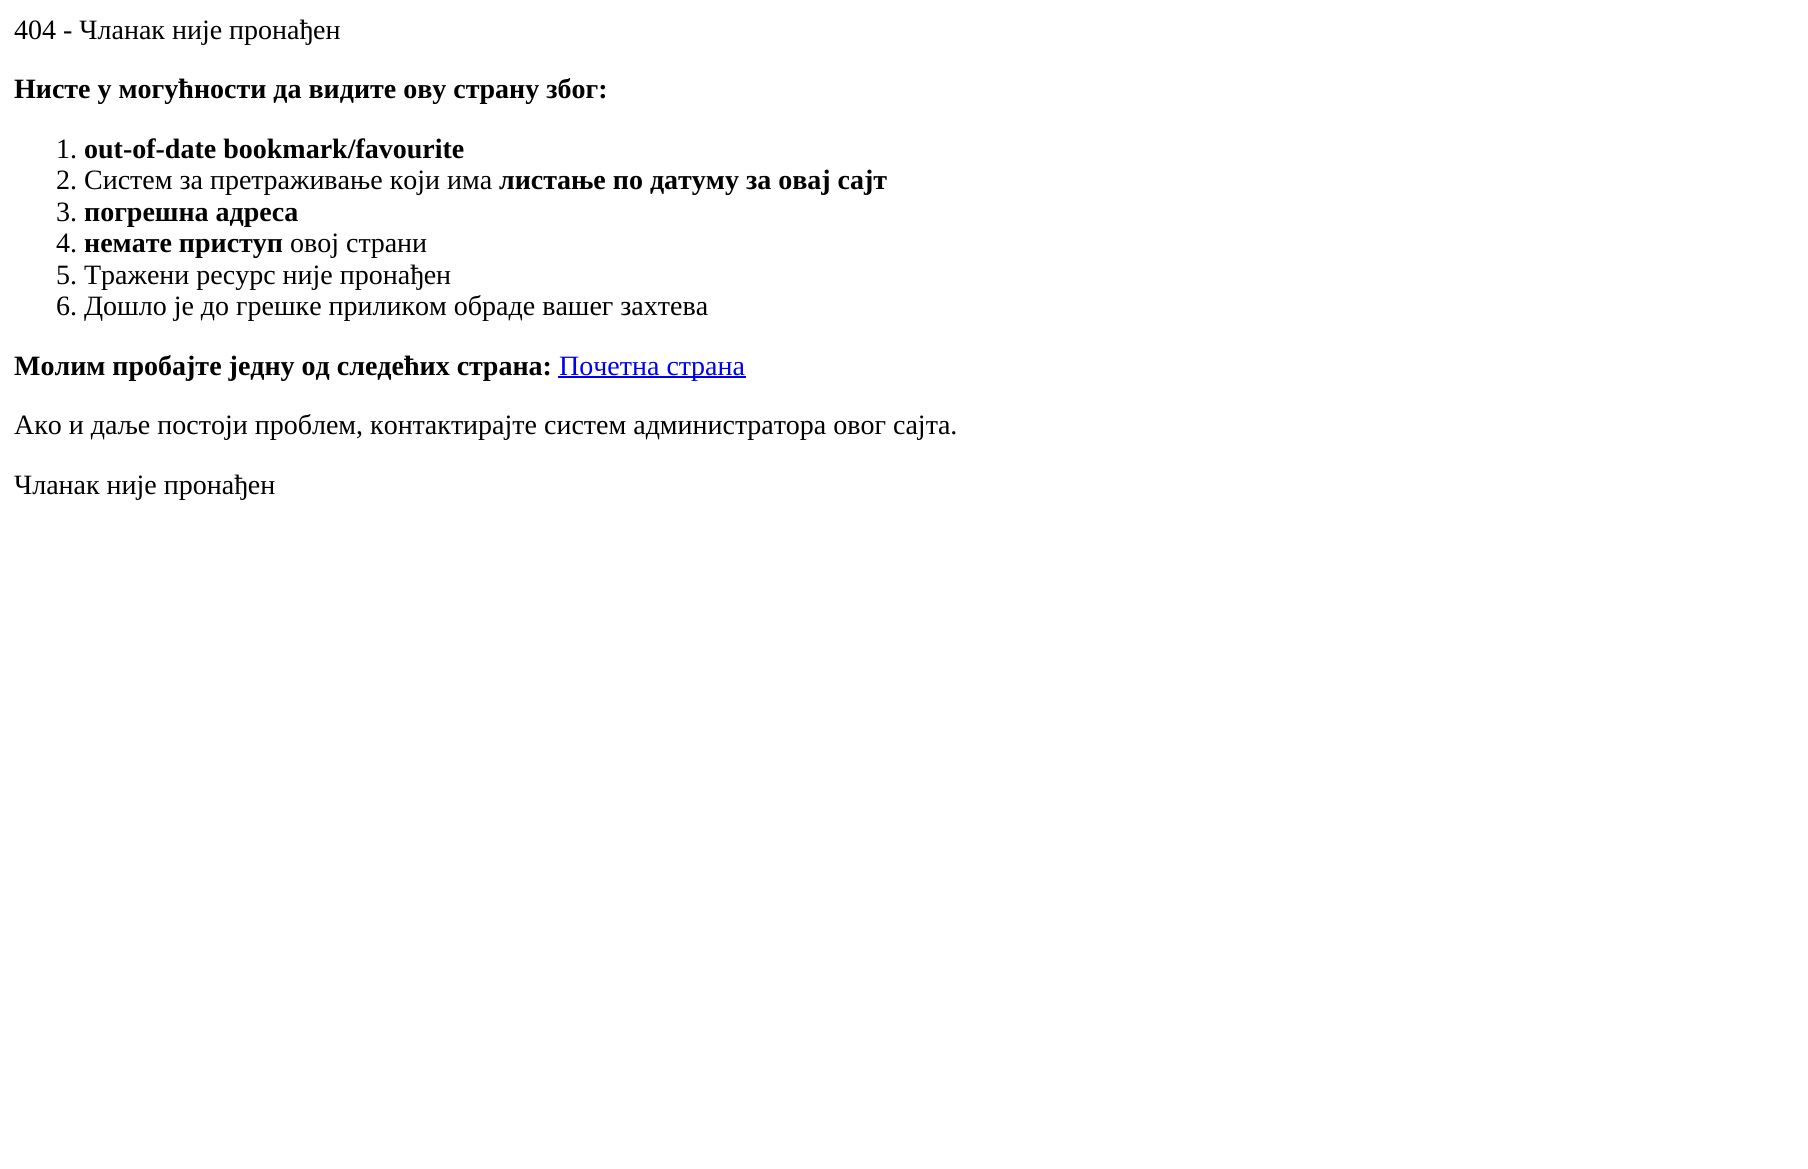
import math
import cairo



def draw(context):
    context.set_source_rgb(1, 1, 1)
    context.paint()
    context.set_source_rgb(0, 0, 238 / 255)
    context.rectangle(558, 376, 188, 2)
    context.fill()
    context.select_font_face("Liberation Serif")
    context.set_font_size(28)
    context.set_source_rgb(0, 0, 0)
    context.move_to(14, 39)
    context.show_text("404 - Чланак није пронађен")
    context.select_font_face("Liberation Serif", cairo.FontSlant.NORMAL, cairo.FontWeight.BOLD)
    context.move_to(14, 98)
    context.show_text("Нисте у могућности да видите ову страну због:")
    context.select_font_face("Liberation Serif")
    context.move_to(56, 158)
    context.show_text("1.")
    context.select_font_face("Liberation Serif", cairo.FontSlant.NORMAL, cairo.FontWeight.BOLD)
    context.move_to(84, 158)
    context.show_text("out-of-date bookmark/favourite")
    context.select_font_face("Liberation Serif")
    context.move_to(56, 189)
    context.show_text("2. Систем за претраживање који има")
    context.select_font_face("Liberation Serif", cairo.FontSlant.NORMAL, cairo.FontWeight.BOLD)
    context.move_to(499, 189)
    context.show_text("листање по датуму за овај сајт")
    context.select_font_face("Liberation Serif")
    context.move_to(56, 221)
    context.show_text("3.")
    context.select_font_face("Liberation Serif", cairo.FontSlant.NORMAL, cairo.FontWeight.BOLD)
    context.move_to(84, 221)
    context.show_text("погрешна адреса")
    context.select_font_face("Liberation Serif")
    context.move_to(56, 252)
    context.show_text("4.")
    context.select_font_face("Liberation Serif", cairo.FontSlant.NORMAL, cairo.FontWeight.BOLD)
    context.move_to(84, 252)
    context.show_text("немате приступ")
    context.select_font_face("Liberation Serif")
    context.move_to(290, 252)
    context.show_text("овој страни")
    context.move_to(56, 284)
    context.show_text("5. Тражени ресурс није пронађен")
    context.move_to(56, 315)
    context.show_text("6. Дошло је до грешке приликом обраде вашег захтева")
    context.select_font_face("Liberation Serif", cairo.FontSlant.NORMAL, cairo.FontWeight.BOLD)
    context.move_to(14, 375)
    context.show_text("Молим пробајте једну од следећих страна:")
    context.select_font_face("Liberation Serif")
    context.set_source_rgb(0, 0, 238 / 255)
    context.move_to(559, 375)
    context.show_text("Почетна страна")
    context.set_source_rgb(0, 0, 0)
    context.move_to(14, 434)
    context.show_text("Ако и даље постоји проблем, контактирајте систем администратора овог сајта.")
    context.move_to(14, 494)
    context.show_text("Чланак није пронађен")


surface = cairo.ImageSurface(cairo.Format.RGB24, 1808, 1169)
context = cairo.Context(surface)
options = cairo.FontOptions()
options.set_hint_metrics(cairo.HintMetrics.OFF)
options.set_hint_style(cairo.HintStyle.NONE)
context.set_font_options(options)
context.set_miter_limit(4)
draw(context)
surface.write_to_png("out.png")
